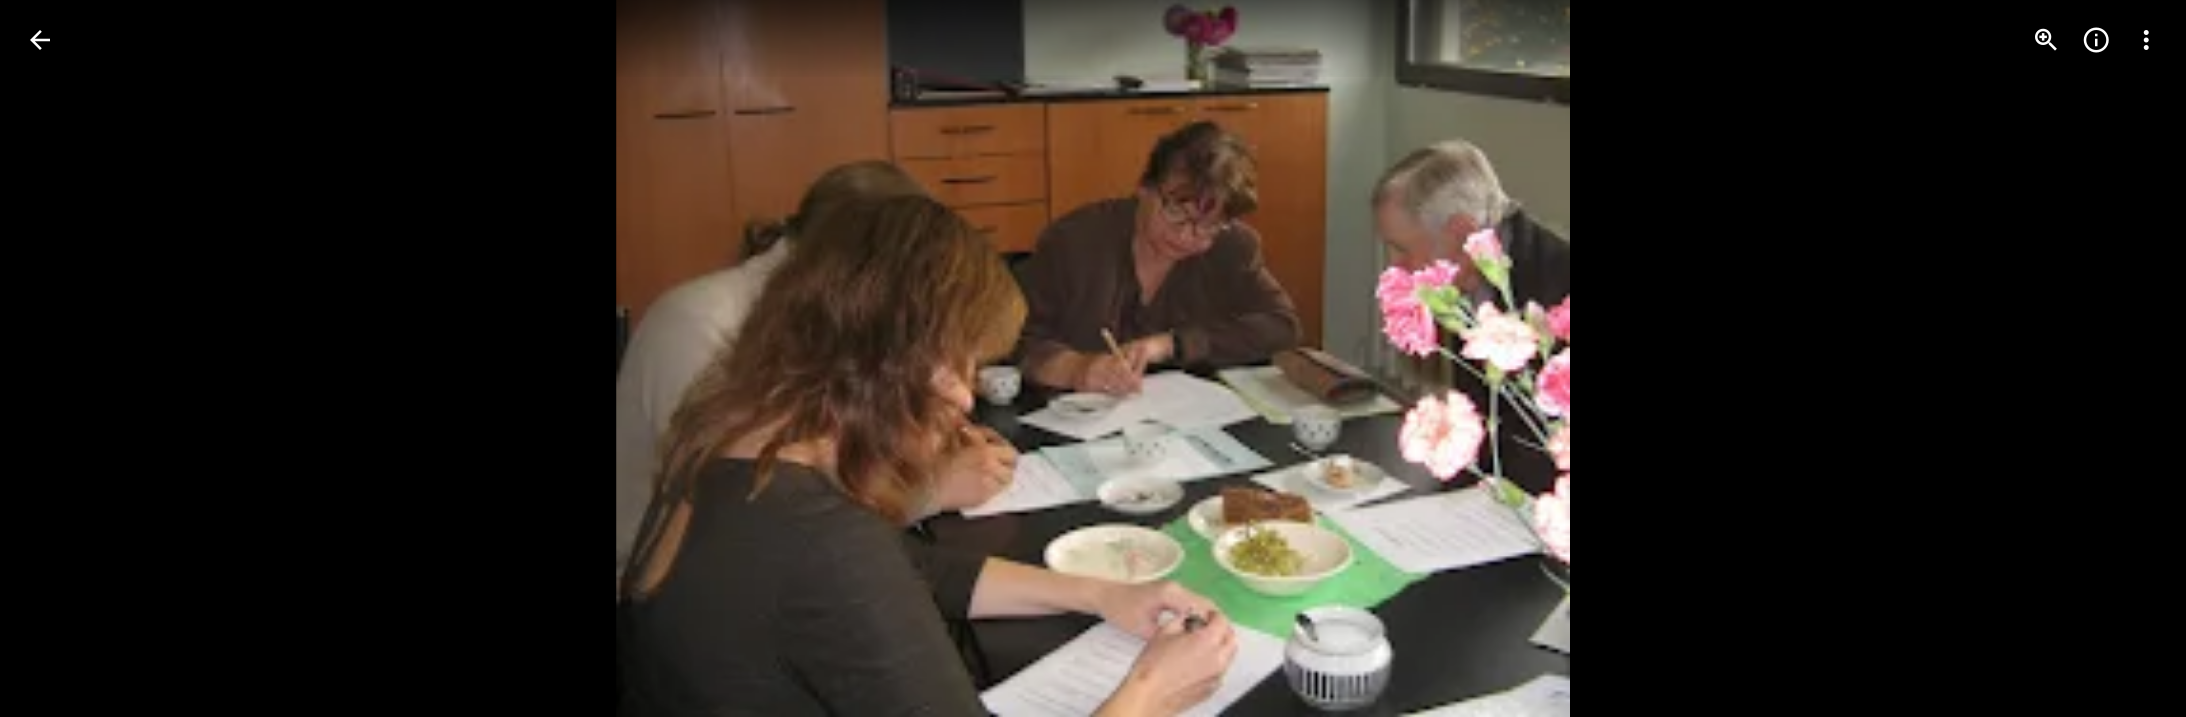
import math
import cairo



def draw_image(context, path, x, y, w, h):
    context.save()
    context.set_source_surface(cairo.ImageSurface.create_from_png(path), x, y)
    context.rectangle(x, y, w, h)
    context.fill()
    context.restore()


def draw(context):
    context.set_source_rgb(0, 0, 0)
    context.paint()
    draw_image(context, "images/5.png", 616, 0, 954, 717)
    gradient = cairo.LinearGradient(1093, 0, 1093, 80)
    gradient.add_color_stop_rgba(0, 0, 0, 0, 0.6)
    gradient.add_color_stop_rgba(1, 0, 0, 0, 0)
    context.set_source(gradient)
    context.rectangle(616, 0, 954, 77)
    context.fill()
    draw_image(context, "images/1.png", 30, 30, 20, 20)
    draw_image(context, "images/2.png", 2035, 28, 22, 23)
    draw_image(context, "images/3.png", 2083, 27, 26, 26)
    draw_image(context, "images/4.png", 2143, 30, 6, 20)


surface = cairo.ImageSurface(cairo.Format.RGB24, 2186, 717)
context = cairo.Context(surface)
options = cairo.FontOptions()
options.set_hint_metrics(cairo.HintMetrics.OFF)
options.set_hint_style(cairo.HintStyle.NONE)
context.set_font_options(options)
context.set_miter_limit(4)
draw(context)
surface.write_to_png("out.png")
